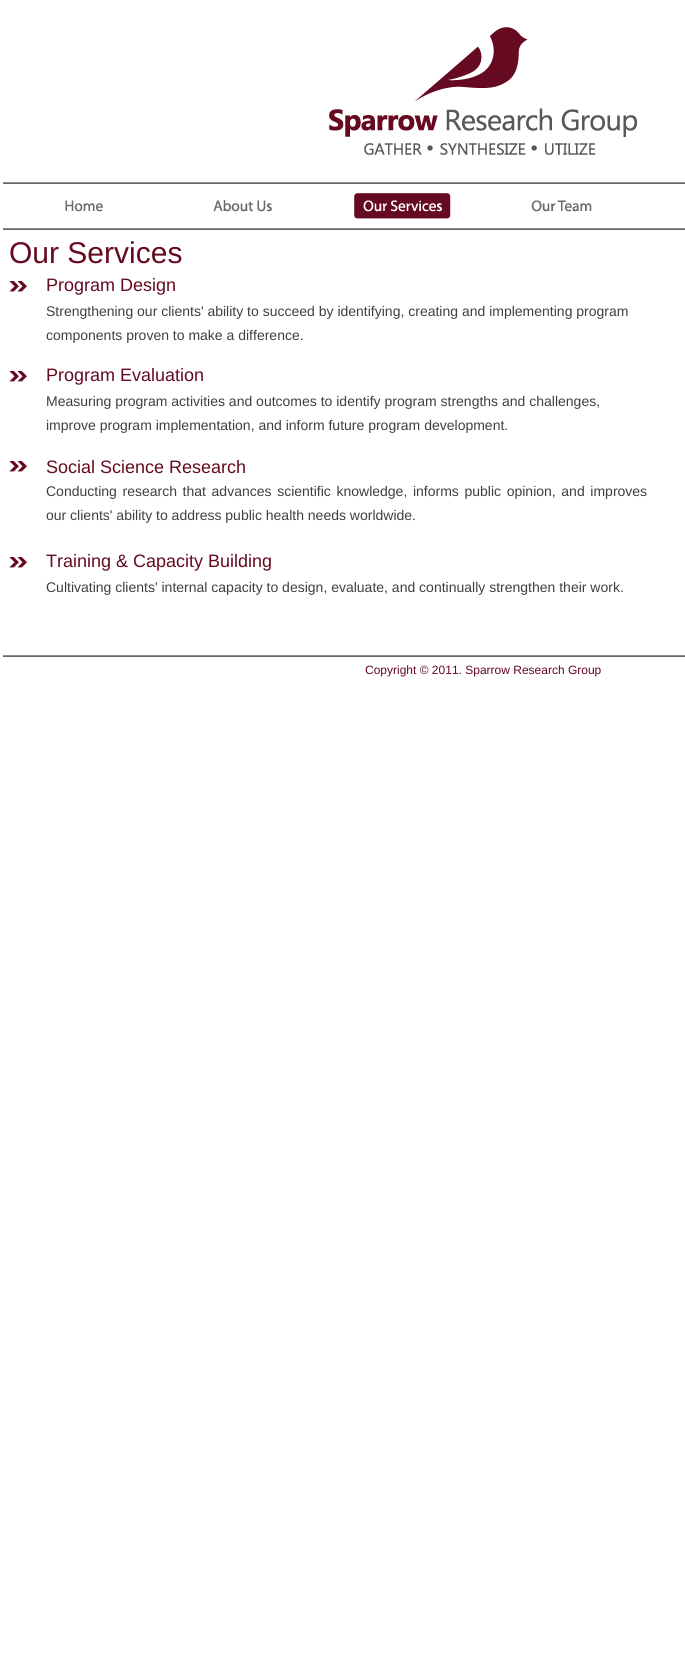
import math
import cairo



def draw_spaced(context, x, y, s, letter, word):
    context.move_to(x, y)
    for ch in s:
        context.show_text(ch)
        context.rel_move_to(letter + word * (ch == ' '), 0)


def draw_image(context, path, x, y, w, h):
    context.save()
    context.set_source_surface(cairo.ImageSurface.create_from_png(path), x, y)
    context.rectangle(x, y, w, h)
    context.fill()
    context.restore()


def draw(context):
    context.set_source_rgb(1, 1, 1)
    context.paint()
    draw_image(context, "images/1.png", 329, 27, 308, 128)
    draw_image(context, "images/2.png", 3, 182, 682, 2)
    draw_image(context, "images/3.png", 65, 200, 38, 12)
    draw_image(context, "images/4.png", 213, 200, 59, 12)
    draw_image(context, "images/5.png", 354, 193, 97, 26)
    draw_image(context, "images/6.png", 531, 200, 61, 12)
    draw_image(context, "images/2.png", 3, 228, 682, 2)
    draw_image(context, "images/7.png", 9, 281, 18, 11)
    draw_image(context, "images/7.png", 9, 371, 18, 11)
    draw_image(context, "images/7.png", 9, 461, 18, 11)
    draw_image(context, "images/7.png", 9, 557, 18, 11)
    draw_image(context, "images/2.png", 3, 655, 682, 2)
    context.select_font_face("Liberation Sans")
    context.set_font_size(30)
    context.set_source_rgb(101 / 255, 10 / 255, 32 / 255)
    context.move_to(9, 263)
    context.show_text("Our Services")
    context.set_font_size(18)
    context.move_to(46, 291)
    context.show_text("Program Design")
    context.set_font_size(14)
    context.set_source_rgb(63 / 255, 63 / 255, 63 / 255)
    context.move_to(46, 316)
    context.show_text("Strengthening our clients' ability to succeed by identifying, creating and implementing program")
    context.move_to(46, 340)
    context.show_text("components proven to make a difference.")
    context.set_font_size(18)
    context.set_source_rgb(101 / 255, 10 / 255, 32 / 255)
    context.move_to(46, 381)
    context.show_text("Program Evaluation")
    context.set_font_size(14)
    context.set_source_rgb(63 / 255, 63 / 255, 63 / 255)
    context.move_to(46, 406)
    context.show_text("Measuring program activities and outcomes to identify program strengths and challenges,")
    context.move_to(46, 430)
    context.show_text("improve program implementation, and inform future program development.")
    context.set_font_size(18)
    context.set_source_rgb(101 / 255, 10 / 255, 32 / 255)
    context.move_to(46, 473)
    context.show_text("Social Science Research")
    context.set_font_size(14)
    context.set_source_rgb(63 / 255, 63 / 255, 63 / 255)
    draw_spaced(context, 46, 496, "Conducting research that advances scientific knowledge, informs public opinion, and improves", 0, 1.75)
    context.move_to(46, 520)
    context.show_text("our clients' ability to address public health needs worldwide.")
    context.set_font_size(18)
    context.set_source_rgb(101 / 255, 10 / 255, 32 / 255)
    context.move_to(46, 567)
    context.show_text("Training & Capacity Building")
    context.set_font_size(14)
    context.set_source_rgb(63 / 255, 63 / 255, 63 / 255)
    context.move_to(46, 592)
    context.show_text("Cultivating clients' internal capacity to design, evaluate, and continually strengthen their work.")
    context.set_font_size(12)
    context.set_source_rgb(101 / 255, 10 / 255, 32 / 255)
    context.move_to(365, 674)
    context.show_text("Copyright © 2011. Sparrow Research Group")


surface = cairo.ImageSurface(cairo.Format.RGB24, 685, 1680)
context = cairo.Context(surface)
options = cairo.FontOptions()
options.set_hint_metrics(cairo.HintMetrics.OFF)
options.set_hint_style(cairo.HintStyle.NONE)
context.set_font_options(options)
context.set_miter_limit(4)
draw(context)
surface.write_to_png("out.png")
